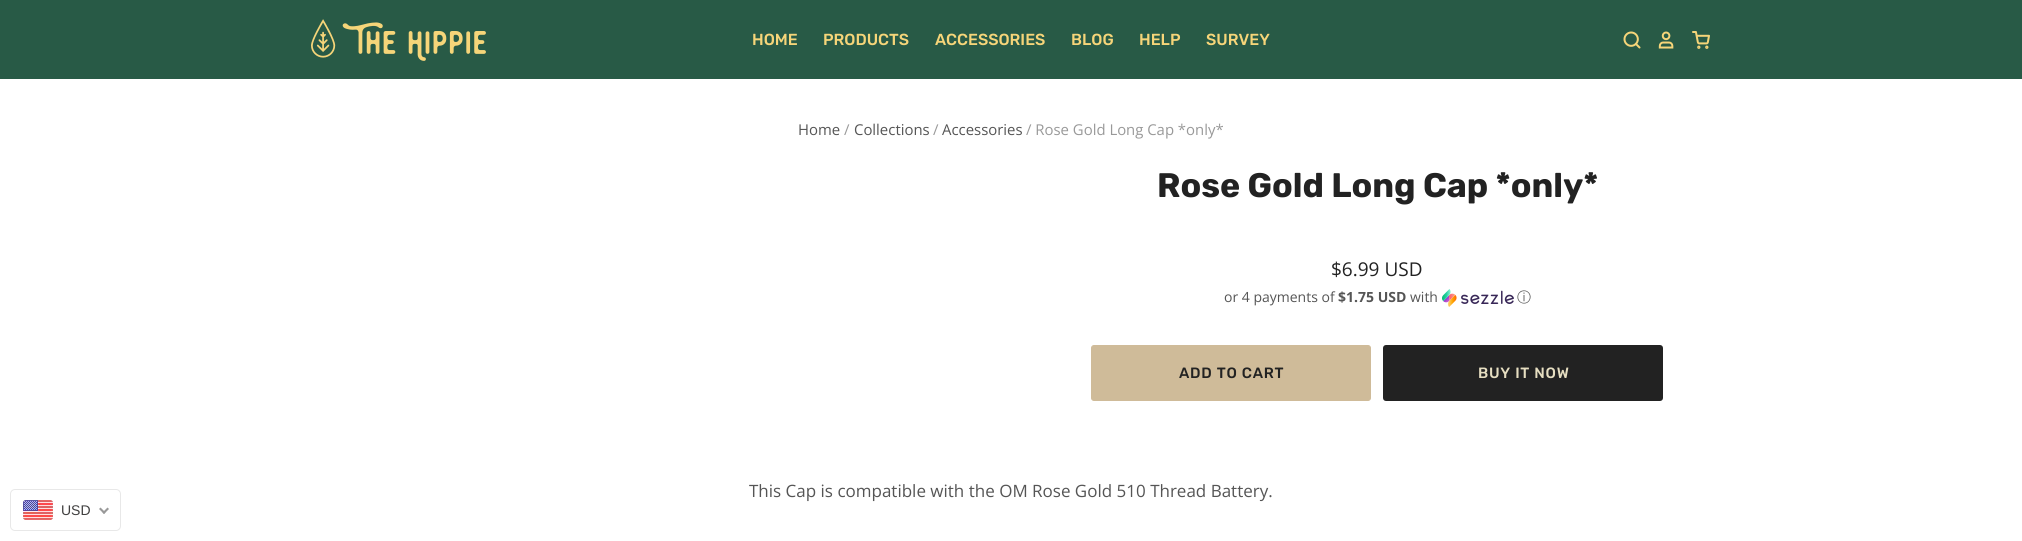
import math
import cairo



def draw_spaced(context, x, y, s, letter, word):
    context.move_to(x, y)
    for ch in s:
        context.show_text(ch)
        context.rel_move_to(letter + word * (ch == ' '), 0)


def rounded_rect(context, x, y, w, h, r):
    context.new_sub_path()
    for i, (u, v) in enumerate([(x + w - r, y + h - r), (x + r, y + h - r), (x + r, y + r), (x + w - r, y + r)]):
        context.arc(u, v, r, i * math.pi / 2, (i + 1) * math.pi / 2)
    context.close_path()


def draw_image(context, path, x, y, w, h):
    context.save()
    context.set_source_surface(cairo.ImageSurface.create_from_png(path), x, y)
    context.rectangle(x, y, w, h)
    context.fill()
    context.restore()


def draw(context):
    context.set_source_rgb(1, 1, 1)
    context.paint()
    context.set_source_rgb(40 / 255, 90 / 255, 70 / 255)
    context.rectangle(0, 0, 2022, 79)
    context.fill()
    draw_image(context, "images/1.png", 311, 19, 175, 42)
    draw_image(context, "images/2.png", 1623, 31, 18, 18)
    draw_image(context, "images/3.png", 1658, 31, 16, 18)
    draw_image(context, "images/4.png", 1692, 31, 18, 18)
    draw_image(context, "images/5.png", 1442, 289, 72, 18)
    context.set_source_rgb(207 / 255, 187 / 255, 153 / 255)
    rounded_rect(context, 1091.5, 345.5, 279, 55, 2.5)
    context.fill_preserve()
    context.set_line_width(1)
    context.stroke()
    context.set_source_rgb(34 / 255, 34 / 255, 34 / 255)
    rounded_rect(context, 1383, 345, 280, 56, 3)
    context.fill()
    rounded_rect(context, 10.5, 489.5, 110, 41, 4.5)
    context.set_source_rgb(232 / 255, 232 / 255, 232 / 255)
    context.stroke()
    draw_image(context, "images/6.png", 23, 500, 30, 20)
    context.set_source_rgb(153 / 255, 153 / 255, 153 / 255)
    context.new_path()
    context.move_to(107.5, 507.5)
    context.line_to(109, 509)
    context.line_to(104, 514)
    context.line_to(102.5, 512.5)
    context.close_path()
    context.fill()
    context.new_path()
    context.move_to(100.5, 507.5)
    context.line_to(105.5, 512.5)
    context.line_to(104, 514)
    context.line_to(99, 509)
    context.close_path()
    context.fill()
    context.select_font_face("Rubik Medium")
    context.set_font_size(16)
    context.set_source_rgb(246 / 255, 213 / 255, 121 / 255)
    context.move_to(752, 45)
    context.show_text("HOME")
    context.move_to(823, 45)
    context.show_text("PRODUCTS")
    context.move_to(935, 45)
    context.show_text("ACCESSORIES")
    context.move_to(1071, 45)
    context.show_text("BLOG")
    context.move_to(1139, 45)
    context.show_text("HELP")
    context.move_to(1206, 45)
    context.show_text("SURVEY")
    context.select_font_face("Open Sans")
    context.set_font_size(14.9)
    context.set_source_rgb(85 / 255, 85 / 255, 85 / 255)
    context.move_to(798, 135)
    context.show_text("Home")
    context.set_source_rgb(153 / 255, 153 / 255, 153 / 255)
    context.move_to(844, 135)
    context.show_text("/")
    context.set_source_rgb(85 / 255, 85 / 255, 85 / 255)
    context.move_to(854, 135)
    context.show_text("Collections")
    context.set_source_rgb(153 / 255, 153 / 255, 153 / 255)
    context.move_to(933, 135)
    context.show_text("/")
    context.set_source_rgb(85 / 255, 85 / 255, 85 / 255)
    context.move_to(942, 135)
    context.show_text("Accessories")
    context.set_source_rgb(153 / 255, 153 / 255, 153 / 255)
    context.move_to(1026, 135)
    context.show_text("/ Rose Gold Long Cap *only*")
    context.select_font_face("Rubik", cairo.FontSlant.NORMAL, cairo.FontWeight.BOLD)
    context.set_font_size(34)
    context.set_source_rgb(34 / 255, 34 / 255, 34 / 255)
    context.move_to(1157, 197)
    context.show_text("Rose Gold Long Cap *only*")
    context.select_font_face("Open Sans")
    context.set_font_size(19)
    context.move_to(1331, 276)
    context.show_text("$6.99 USD")
    context.set_font_size(14)
    context.set_source_rgb(85 / 255, 85 / 255, 85 / 255)
    context.move_to(1224, 302)
    context.show_text("or 4 payments of")
    context.select_font_face("Open Sans", cairo.FontSlant.NORMAL, cairo.FontWeight.BOLD)
    context.move_to(1338, 302)
    context.show_text("$1.75 USD")
    context.select_font_face("Open Sans")
    context.move_to(1410, 302)
    context.show_text("with")
    context.select_font_face("WenQuanYi Zen Hei Medium")
    context.move_to(1517, 302)
    context.show_text("ⓘ")
    context.select_font_face("Rubik Medium")
    context.set_font_size(14.9)
    context.set_source_rgb(34 / 255, 34 / 255, 34 / 255)
    draw_spaced(context, 1179, 378, "ADD TO CART", 0.75, 0)
    context.set_source_rgb(230 / 255, 222 / 255, 193 / 255)
    draw_spaced(context, 1478, 378, "BUY IT NOW", 0.75, 0)
    context.select_font_face("Open Sans")
    context.set_font_size(17)
    context.set_source_rgb(85 / 255, 85 / 255, 85 / 255)
    context.move_to(749, 497)
    context.show_text("This Cap is compatible with the OM Rose Gold 510 Thread Battery.")
    context.select_font_face("Liberation Sans")
    context.set_font_size(14)
    context.set_source_rgb(64 / 255, 63 / 255, 63 / 255)
    context.move_to(61, 515)
    context.show_text("USD")


surface = cairo.ImageSurface(cairo.Format.RGB24, 2022, 541)
context = cairo.Context(surface)
options = cairo.FontOptions()
options.set_hint_metrics(cairo.HintMetrics.OFF)
options.set_hint_style(cairo.HintStyle.NONE)
context.set_font_options(options)
context.set_miter_limit(4)
draw(context)
surface.write_to_png("out.png")
